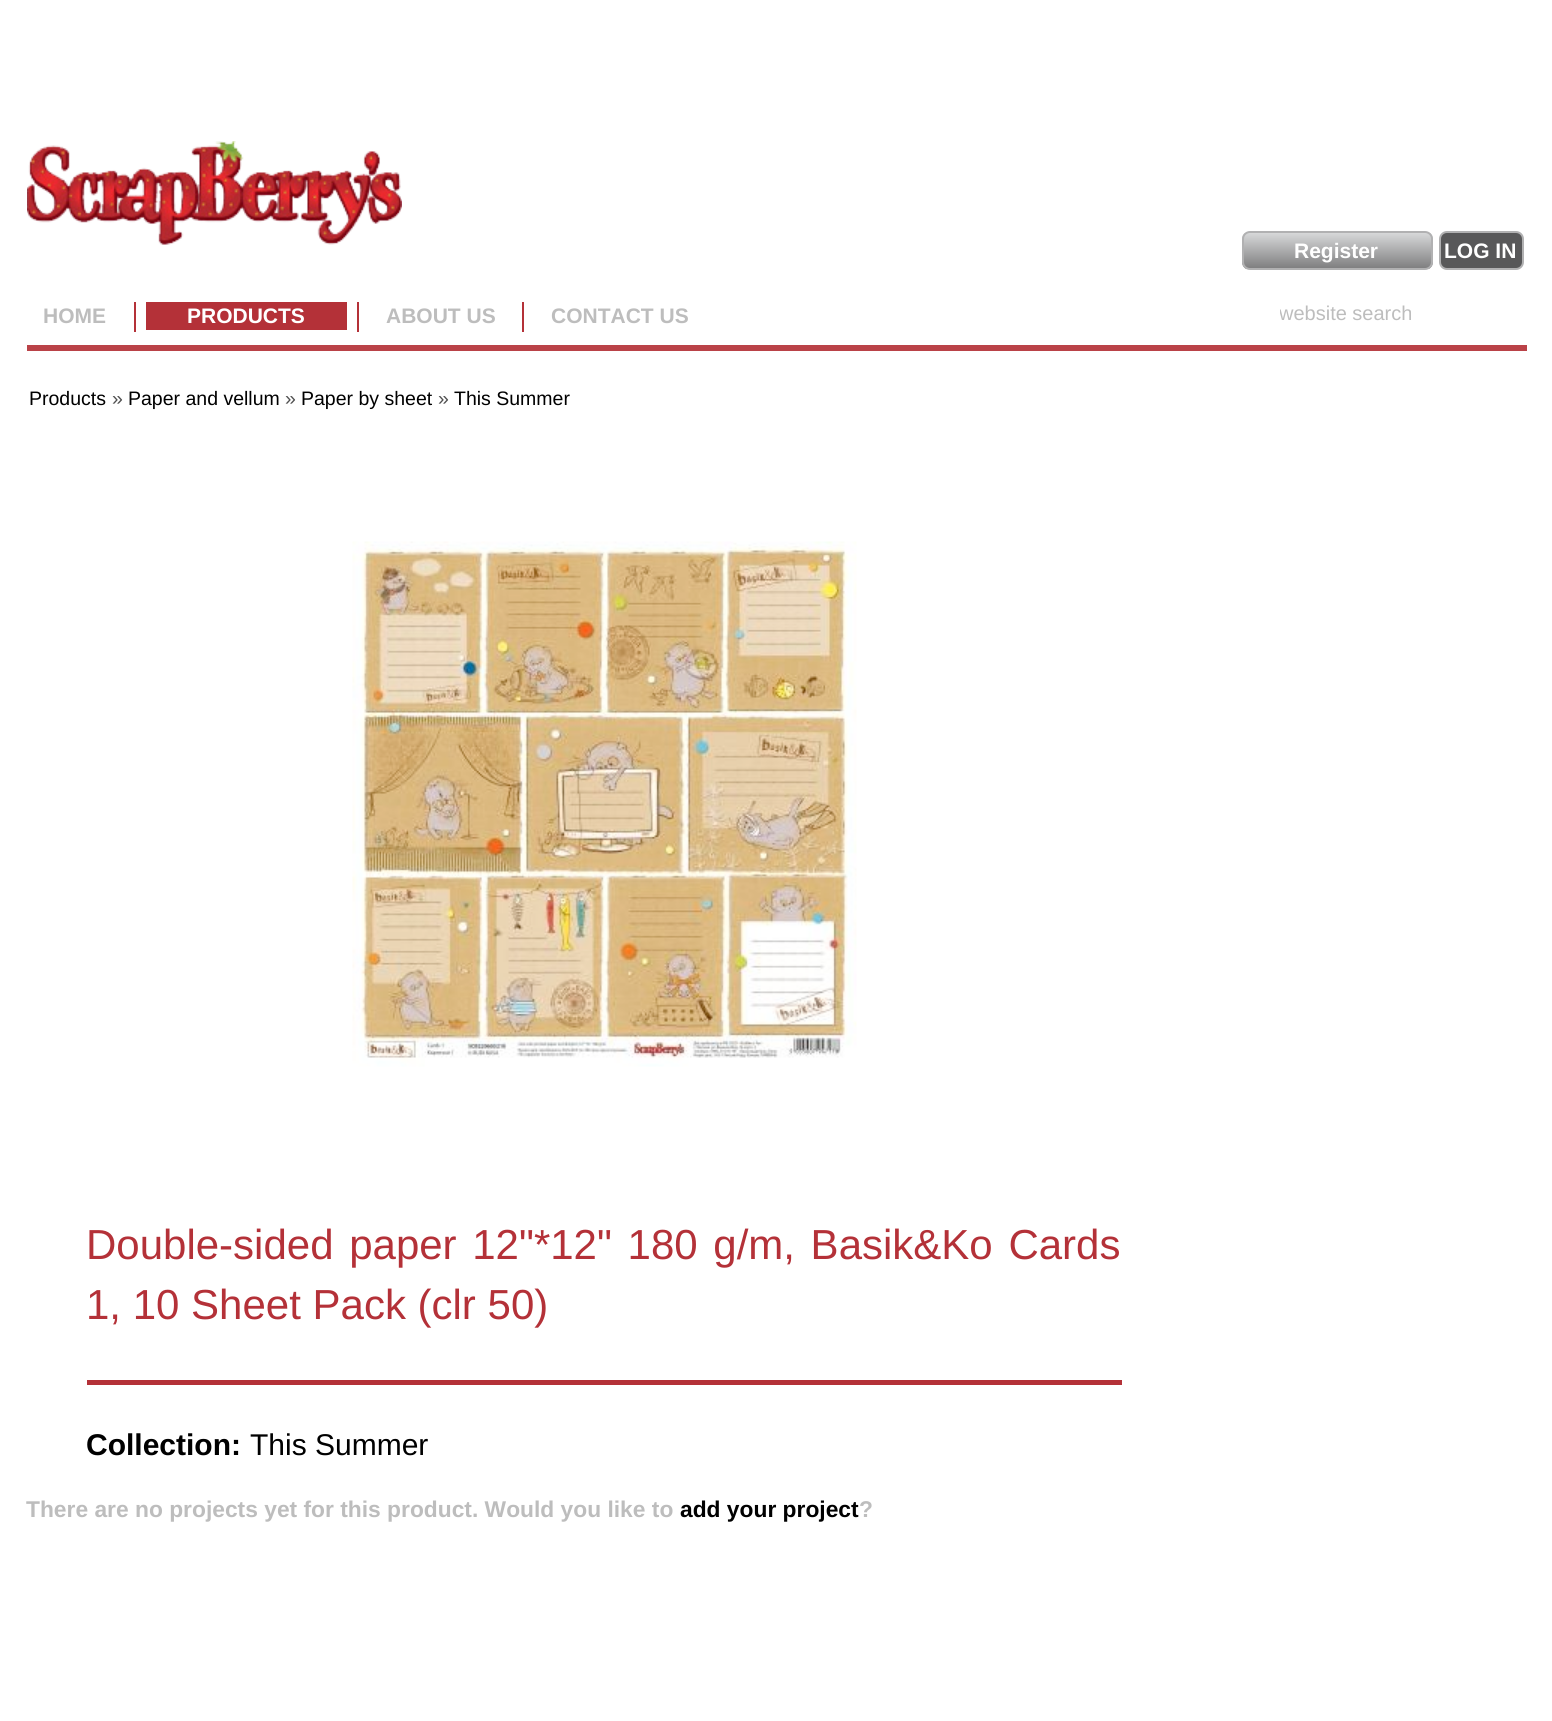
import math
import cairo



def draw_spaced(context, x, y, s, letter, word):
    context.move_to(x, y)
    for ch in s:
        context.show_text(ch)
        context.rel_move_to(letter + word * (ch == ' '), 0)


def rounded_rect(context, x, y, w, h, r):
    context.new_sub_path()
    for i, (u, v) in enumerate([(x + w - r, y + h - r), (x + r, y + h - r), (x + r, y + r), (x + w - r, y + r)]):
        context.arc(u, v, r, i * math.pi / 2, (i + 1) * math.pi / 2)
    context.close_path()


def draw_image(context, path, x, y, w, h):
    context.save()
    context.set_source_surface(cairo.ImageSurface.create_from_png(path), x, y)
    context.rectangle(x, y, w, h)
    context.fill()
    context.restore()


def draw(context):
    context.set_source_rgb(1, 1, 1)
    context.paint()
    draw_image(context, "images/1.png", 27, 141, 375, 104)
    context.save()
    rounded_rect(context, 1242, 231, 191, 39, 8)
    context.clip()
    gradient = cairo.LinearGradient(1337, 233, 1337, 269)
    gradient.add_color_stop_rgba(0, 215 / 255, 216 / 255, 217 / 255, 1)
    gradient.add_color_stop_rgba(1, 125 / 255, 125 / 255, 126 / 255, 1)
    context.set_source(gradient)
    context.rectangle(1242, 233, 191, 36)
    context.fill()
    context.restore()
    rounded_rect(context, 1243, 232, 189, 37, 7)
    context.set_source_rgb(177 / 255, 177 / 255, 178 / 255)
    context.stroke()
    context.set_source_rgb(88 / 255, 88 / 255, 89 / 255)
    rounded_rect(context, 1440, 232, 83, 37, 7)
    context.fill_preserve()
    context.set_source_rgb(177 / 255, 177 / 255, 178 / 255)
    context.stroke()
    context.set_source_rgb(186 / 255, 66 / 255, 72 / 255)
    context.rectangle(27, 345, 1500, 6)
    context.fill()
    context.set_source_rgb(180 / 255, 49 / 255, 56 / 255)
    context.rectangle(134, 302, 2, 30)
    context.fill()
    context.rectangle(146, 302, 201, 28)
    context.fill()
    context.rectangle(357, 302, 2, 30)
    context.fill()
    context.rectangle(522, 302, 2, 30)
    context.fill()
    draw_image(context, "images/2.png", 352, 541, 505, 526)
    context.rectangle(87, 1380, 1035, 5)
    context.fill()
    context.select_font_face("Liberation Sans", cairo.FontSlant.NORMAL, cairo.FontWeight.BOLD)
    context.set_font_size(21)
    context.set_source_rgb(1, 1, 1)
    context.move_to(1294, 258)
    context.show_text("Register")
    context.move_to(1444, 258)
    context.show_text("LOG IN")
    context.set_source_rgb(189 / 255, 189 / 255, 189 / 255)
    context.move_to(43, 323)
    context.show_text("HOME")
    context.set_source_rgb(1, 1, 1)
    context.move_to(187, 323)
    context.show_text("PRODUCTS")
    context.set_source_rgb(189 / 255, 189 / 255, 189 / 255)
    context.move_to(386, 323)
    context.show_text("ABOUT US")
    context.move_to(551, 323)
    context.show_text("CONTACT US")
    context.save()
    context.rectangle(1280, 302, 183, 22)
    context.clip()
    context.select_font_face("Liberation Sans")
    context.set_font_size(20)
    context.move_to(1279, 320)
    context.show_text("website search")
    context.restore()
    context.select_font_face("Liberation Sans")
    context.set_font_size(19.5)
    context.set_source_rgb(0, 0, 0)
    context.move_to(29, 405)
    context.show_text("Products")
    context.set_source_rgb(80 / 255, 80 / 255, 80 / 255)
    context.move_to(112, 405)
    context.show_text("»")
    context.set_source_rgb(0, 0, 0)
    context.move_to(128, 405)
    context.show_text("Paper and vellum")
    context.set_source_rgb(80 / 255, 80 / 255, 80 / 255)
    context.move_to(285, 405)
    context.show_text("»")
    context.set_source_rgb(0, 0, 0)
    context.move_to(301, 405)
    context.show_text("Paper by sheet")
    context.set_source_rgb(80 / 255, 80 / 255, 80 / 255)
    context.move_to(438, 405)
    context.show_text("»")
    context.set_source_rgb(0, 0, 0)
    context.move_to(454, 405)
    context.show_text("This Summer")
    context.set_font_size(42)
    context.set_source_rgb(180 / 255, 49 / 255, 56 / 255)
    draw_spaced(context, 86, 1259, "Double-sided paper 12\"*12\" 180 g/m, Basik&Ko Сards", 0, 4)
    context.move_to(86, 1319)
    context.show_text("1, 10 Sheet Pack (clr 50)")
    context.select_font_face("Liberation Sans", cairo.FontSlant.NORMAL, cairo.FontWeight.BOLD)
    context.set_font_size(30)
    context.set_source_rgb(0, 0, 0)
    context.move_to(86, 1455)
    context.show_text("Collection:")
    context.select_font_face("Liberation Sans")
    context.move_to(250, 1455)
    context.show_text("This Summer")
    context.select_font_face("Liberation Sans", cairo.FontSlant.NORMAL, cairo.FontWeight.BOLD)
    context.set_font_size(22.8)
    context.set_source_rgb(189 / 255, 189 / 255, 189 / 255)
    context.move_to(26, 1517)
    context.show_text("There are no projects yet for this product. Would you like to")
    context.set_source_rgb(0, 0, 0)
    context.move_to(680, 1517)
    context.show_text("add your project")
    context.set_source_rgb(189 / 255, 189 / 255, 189 / 255)
    context.move_to(859, 1517)
    context.show_text("?")


surface = cairo.ImageSurface(cairo.Format.RGB24, 1552, 1721)
context = cairo.Context(surface)
options = cairo.FontOptions()
options.set_hint_metrics(cairo.HintMetrics.OFF)
options.set_hint_style(cairo.HintStyle.NONE)
context.set_font_options(options)
context.set_miter_limit(4)
draw(context)
surface.write_to_png("out.png")
